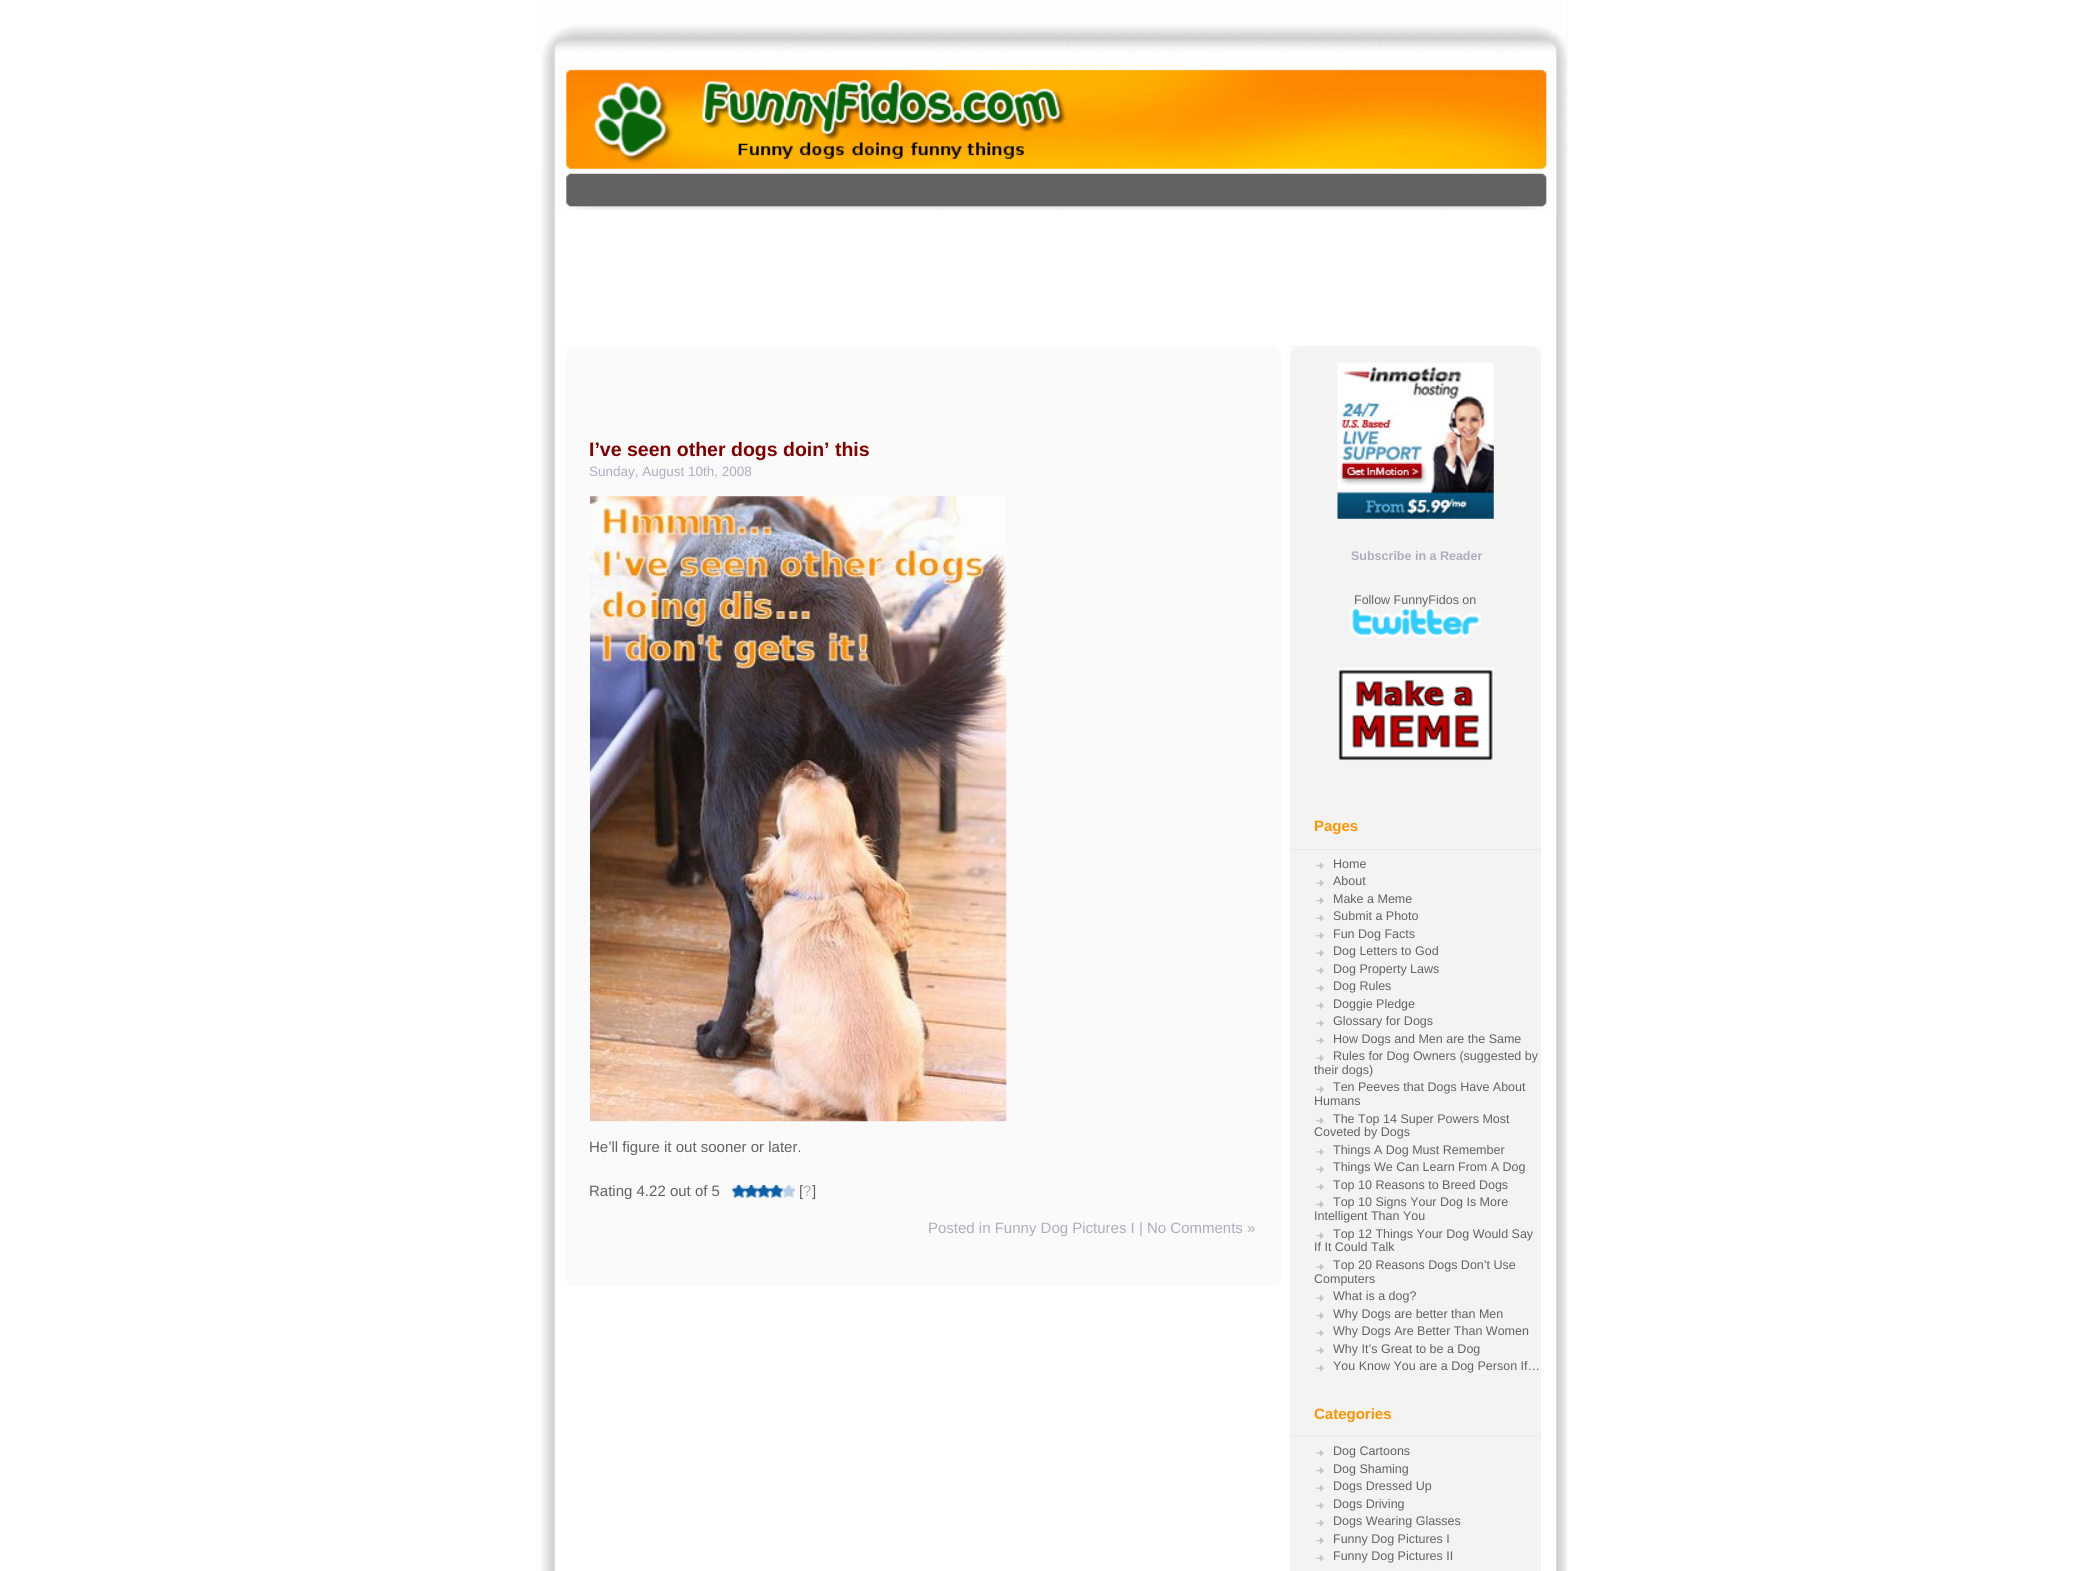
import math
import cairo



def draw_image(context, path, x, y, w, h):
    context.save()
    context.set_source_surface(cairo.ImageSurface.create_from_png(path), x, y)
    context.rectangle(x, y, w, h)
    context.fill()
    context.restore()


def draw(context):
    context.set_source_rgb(1, 1, 1)
    context.paint()
    draw_image(context, "images/1.png", 541, 0, 1027, 1571)
    draw_image(context, "images/2.png", 541, 0, 1026, 169)
    draw_image(context, "images/3.png", 544, 28, 1022, 182)
    draw_image(context, "images/4.png", 566, 347, 715, 8)
    context.set_source_rgb(250 / 255, 250 / 255, 250 / 255)
    context.rectangle(565, 355, 716, 926)
    context.fill()
    draw_image(context, "images/5.png", 565, 1281, 716, 5)
    draw_image(context, "images/6.png", 590, 496, 417, 626)
    draw_image(context, "images/7.png", 732, 1185, 13, 13)
    draw_image(context, "images/8.png", 745, 1185, 13, 13)
    draw_image(context, "images/9.png", 757, 1185, 13, 13)
    draw_image(context, "images/10.png", 770, 1185, 13, 13)
    draw_image(context, "images/11.png", 782, 1185, 13, 13)
    context.set_source_rgb(243 / 255, 243 / 255, 243 / 255)
    context.rectangle(1290, 346, 251, 1225)
    context.fill()
    draw_image(context, "images/12.png", 1290, 346, 251, 8)
    draw_image(context, "images/13.png", 1337, 362, 157, 157)
    draw_image(context, "images/15.png", 1337, 667, 157, 94)
    context.set_source_rgb(234 / 255, 234 / 255, 234 / 255)
    context.rectangle(1290, 849, 251, 1)
    context.fill()
    draw_image(context, "images/16.png", 1316, 862, 8, 7)
    draw_image(context, "images/17.png", 1316, 880, 8, 7)
    draw_image(context, "images/16.png", 1316, 897, 8, 7)
    draw_image(context, "images/17.png", 1316, 915, 8, 7)
    draw_image(context, "images/16.png", 1316, 932, 8, 7)
    draw_image(context, "images/17.png", 1316, 950, 8, 7)
    draw_image(context, "images/16.png", 1316, 967, 8, 7)
    draw_image(context, "images/17.png", 1316, 985, 8, 7)
    draw_image(context, "images/16.png", 1316, 1002, 8, 7)
    draw_image(context, "images/17.png", 1316, 1020, 8, 7)
    draw_image(context, "images/16.png", 1316, 1037, 8, 7)
    draw_image(context, "images/17.png", 1316, 1055, 8, 7)
    draw_image(context, "images/18.png", 1316, 1086, 8, 7)
    draw_image(context, "images/16.png", 1316, 1117, 8, 7)
    draw_image(context, "images/19.png", 1316, 1148, 8, 7)
    draw_image(context, "images/18.png", 1316, 1166, 8, 7)
    draw_image(context, "images/19.png", 1316, 1183, 8, 7)
    draw_image(context, "images/18.png", 1316, 1201, 8, 7)
    draw_image(context, "images/16.png", 1316, 1232, 8, 7)
    draw_image(context, "images/19.png", 1316, 1263, 8, 7)
    draw_image(context, "images/17.png", 1316, 1295, 8, 7)
    draw_image(context, "images/16.png", 1316, 1312, 8, 7)
    draw_image(context, "images/17.png", 1316, 1330, 8, 7)
    draw_image(context, "images/16.png", 1316, 1347, 8, 7)
    draw_image(context, "images/17.png", 1316, 1365, 8, 7)
    context.rectangle(1290, 1436, 251, 1)
    context.fill()
    draw_image(context, "images/17.png", 1316, 1450, 8, 7)
    draw_image(context, "images/16.png", 1316, 1467, 8, 7)
    draw_image(context, "images/17.png", 1316, 1485, 8, 7)
    draw_image(context, "images/16.png", 1316, 1502, 8, 7)
    draw_image(context, "images/17.png", 1316, 1520, 8, 7)
    draw_image(context, "images/16.png", 1316, 1537, 8, 7)
    draw_image(context, "images/17.png", 1316, 1555, 8, 7)
    context.select_font_face("Liberation Sans", cairo.FontSlant.NORMAL, cairo.FontWeight.BOLD)
    context.set_font_size(19.5)
    context.set_source_rgb(128 / 255, 0, 0)
    context.move_to(589, 456)
    context.show_text("I’ve seen other dogs doin’ this")
    context.select_font_face("Liberation Sans")
    context.set_font_size(13.5)
    context.set_source_rgb(174 / 255, 173 / 255, 189 / 255)
    context.move_to(589, 476)
    context.show_text("Sunday, August 10th, 2008")
    context.set_font_size(15)
    context.set_source_rgb(98 / 255, 98 / 255, 98 / 255)
    context.move_to(589, 1152)
    context.show_text("He’ll figure it out sooner or later.")
    context.move_to(589, 1196)
    context.show_text("Rating 4.22 out of 5")
    context.move_to(799, 1196)
    context.show_text("[")
    context.set_source_rgb(174 / 255, 173 / 255, 189 / 255)
    context.move_to(803, 1196)
    context.show_text("?")
    context.set_source_rgb(98 / 255, 98 / 255, 98 / 255)
    context.move_to(812, 1196)
    context.show_text("]")
    context.set_source_rgb(174 / 255, 173 / 255, 189 / 255)
    context.move_to(928, 1233)
    context.show_text("Posted in Funny Dog Pictures I | No Comments »")
    context.select_font_face("Liberation Sans", cairo.FontSlant.NORMAL, cairo.FontWeight.BOLD)
    context.set_font_size(12.5)
    context.move_to(1351, 560)
    context.show_text("Subscribe in a Reader")
    context.select_font_face("Liberation Sans")
    context.set_source_rgb(98 / 255, 98 / 255, 98 / 255)
    context.move_to(1354, 604)
    context.show_text("Follow FunnyFidos on")
    draw_image(context, "images/14.png", 1350, 606, 131, 32)
    context.select_font_face("Liberation Sans", cairo.FontSlant.NORMAL, cairo.FontWeight.BOLD)
    context.set_font_size(15)
    context.set_source_rgb(1, 148 / 255, 0)
    context.move_to(1314, 831)
    context.show_text("Pages")
    context.select_font_face("Liberation Sans")
    context.set_font_size(12.5)
    context.set_source_rgb(98 / 255, 98 / 255, 98 / 255)
    context.move_to(1333, 868)
    context.show_text("Home")
    context.move_to(1333, 885)
    context.show_text("About")
    context.move_to(1333, 903)
    context.show_text("Make a Meme")
    context.move_to(1333, 920)
    context.show_text("Submit a Photo")
    context.move_to(1333, 938)
    context.show_text("Fun Dog Facts")
    context.move_to(1333, 955)
    context.show_text("Dog Letters to God")
    context.move_to(1333, 973)
    context.show_text("Dog Property Laws")
    context.move_to(1333, 990)
    context.show_text("Dog Rules")
    context.move_to(1333, 1008)
    context.show_text("Doggie Pledge")
    context.move_to(1333, 1025)
    context.show_text("Glossary for Dogs")
    context.move_to(1333, 1043)
    context.show_text("How Dogs and Men are the Same")
    context.move_to(1333, 1060)
    context.show_text("Rules for Dog Owners (suggested by")
    context.move_to(1314, 1074)
    context.show_text("their dogs)")
    context.move_to(1333, 1091)
    context.show_text("Ten Peeves that Dogs Have About")
    context.move_to(1314, 1105)
    context.show_text("Humans")
    context.move_to(1333, 1123)
    context.show_text("The Top 14 Super Powers Most")
    context.move_to(1314, 1136)
    context.show_text("Coveted by Dogs")
    context.move_to(1333, 1154)
    context.show_text("Things A Dog Must Remember")
    context.move_to(1333, 1171)
    context.show_text("Things We Can Learn From A Dog")
    context.move_to(1333, 1189)
    context.show_text("Top 10 Reasons to Breed Dogs")
    context.move_to(1333, 1206)
    context.show_text("Top 10 Signs Your Dog Is More")
    context.move_to(1314, 1220)
    context.show_text("Intelligent Than You")
    context.move_to(1333, 1238)
    context.show_text("Top 12 Things Your Dog Would Say")
    context.move_to(1314, 1251)
    context.show_text("If It Could Talk")
    context.move_to(1333, 1269)
    context.show_text("Top 20 Reasons Dogs Don’t Use")
    context.move_to(1314, 1283)
    context.show_text("Computers")
    context.move_to(1333, 1300)
    context.show_text("What is a dog?")
    context.move_to(1333, 1318)
    context.show_text("Why Dogs are better than Men")
    context.move_to(1333, 1335)
    context.show_text("Why Dogs Are Better Than Women")
    context.move_to(1333, 1353)
    context.show_text("Why It’s Great to be a Dog")
    context.move_to(1333, 1370)
    context.show_text("You Know You are a Dog Person If…")
    context.select_font_face("Liberation Sans", cairo.FontSlant.NORMAL, cairo.FontWeight.BOLD)
    context.set_font_size(15)
    context.set_source_rgb(1, 148 / 255, 0)
    context.move_to(1314, 1419)
    context.show_text("Categories")
    context.select_font_face("Liberation Sans")
    context.set_font_size(12.5)
    context.set_source_rgb(98 / 255, 98 / 255, 98 / 255)
    context.move_to(1333, 1455)
    context.show_text("Dog Cartoons")
    context.move_to(1333, 1473)
    context.show_text("Dog Shaming")
    context.move_to(1333, 1490)
    context.show_text("Dogs Dressed Up")
    context.move_to(1333, 1508)
    context.show_text("Dogs Driving")
    context.move_to(1333, 1525)
    context.show_text("Dogs Wearing Glasses")
    context.move_to(1333, 1543)
    context.show_text("Funny Dog Pictures I")
    context.move_to(1333, 1560)
    context.show_text("Funny Dog Pictures II")


surface = cairo.ImageSurface(cairo.Format.RGB24, 2093, 1571)
context = cairo.Context(surface)
options = cairo.FontOptions()
options.set_hint_metrics(cairo.HintMetrics.OFF)
options.set_hint_style(cairo.HintStyle.NONE)
context.set_font_options(options)
context.set_miter_limit(4)
draw(context)
surface.write_to_png("out.png")
